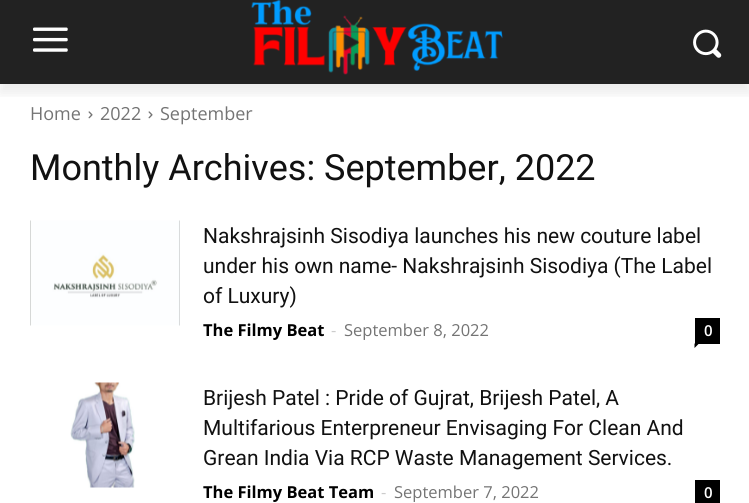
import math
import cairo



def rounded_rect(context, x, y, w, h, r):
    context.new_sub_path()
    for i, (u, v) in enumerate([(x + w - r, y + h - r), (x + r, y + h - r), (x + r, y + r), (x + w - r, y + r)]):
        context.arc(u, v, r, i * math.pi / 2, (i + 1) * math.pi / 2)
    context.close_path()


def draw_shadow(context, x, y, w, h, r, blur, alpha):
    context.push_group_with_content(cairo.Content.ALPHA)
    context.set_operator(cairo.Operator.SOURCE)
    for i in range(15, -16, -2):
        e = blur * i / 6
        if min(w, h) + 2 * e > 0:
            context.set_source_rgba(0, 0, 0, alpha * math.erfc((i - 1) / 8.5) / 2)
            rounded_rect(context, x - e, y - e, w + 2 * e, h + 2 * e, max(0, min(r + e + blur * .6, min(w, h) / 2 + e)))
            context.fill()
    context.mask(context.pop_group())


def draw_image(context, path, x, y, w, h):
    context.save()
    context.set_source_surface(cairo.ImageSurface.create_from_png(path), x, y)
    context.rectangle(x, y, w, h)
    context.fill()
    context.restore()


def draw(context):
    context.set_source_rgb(1, 1, 1)
    context.paint()
    context.set_source_rgb(34 / 255, 34 / 255, 34 / 255)
    context.rectangle(0, 0, 749, 84)
    context.fill()
    draw_image(context, "images/1.png", 33, 27, 35, 25)
    draw_image(context, "images/2.png", 251, 0, 252, 75)
    draw_image(context, "images/3.png", 693, 29, 29, 29)
    draw_image(context, "images/4.png", 88, 111, 5, 8)
    draw_image(context, "images/4.png", 148, 111, 5, 8)
    context.save()
    context.rectangle(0, 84, 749, 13)
    context.clip()
    context.set_source_rgb(0, 0, 0)
    draw_shadow(context, 0, 9, 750, 84, 0, 6, 0.08)
    context.restore()
    draw_image(context, "images/5.png", 30, 220, 150, 106)
    context.set_source_rgb(0, 0, 0)
    context.rectangle(695, 318, 25, 26)
    context.fill()
    context.new_path()
    context.move_to(694.5, 343.5)
    context.line_to(699, 343.5)
    context.line_to(694.5, 348)
    context.close_path()
    context.fill()
    draw_image(context, "images/6.png", 70, 382, 65, 106)
    context.rectangle(695, 480, 25, 23)
    context.fill()
    context.select_font_face("Open Sans")
    context.set_font_size(18)
    context.set_source_rgb(116 / 255, 116 / 255, 116 / 255)
    context.move_to(30, 120)
    context.show_text("Home")
    context.move_to(100, 120)
    context.show_text("2022")
    context.move_to(160, 120)
    context.show_text("September")
    context.select_font_face("Roboto")
    context.set_font_size(36)
    context.set_source_rgb(17 / 255, 17 / 255, 17 / 255)
    context.move_to(30, 180)
    context.show_text("Monthly Archives: September, 2022")
    context.set_font_size(21)
    context.move_to(203, 243)
    context.show_text("Nakshrajsinh Sisodiya launches his new couture label")
    context.move_to(203, 273)
    context.show_text("under his own name- Nakshrajsinh Sisodiya (The Label")
    context.move_to(203, 303)
    context.show_text("of Luxury)")
    context.select_font_face("Open Sans", cairo.FontSlant.NORMAL, cairo.FontWeight.BOLD)
    context.set_font_size(16.5)
    context.set_source_rgb(0, 0, 0)
    context.move_to(203, 336)
    context.show_text("The Filmy Beat")
    context.select_font_face("Open Sans")
    context.set_source_rgb(204 / 255, 204 / 255, 204 / 255)
    context.move_to(331, 336)
    context.show_text("-")
    context.set_source_rgb(116 / 255, 116 / 255, 116 / 255)
    context.move_to(344, 336)
    context.show_text("September 8, 2022")
    context.select_font_face("Open Sans SemiBold")
    context.set_font_size(15)
    context.set_source_rgb(1, 1, 1)
    context.move_to(704, 336)
    context.show_text("0")
    context.select_font_face("Roboto")
    context.set_font_size(21)
    context.set_source_rgb(17 / 255, 17 / 255, 17 / 255)
    context.move_to(203, 405)
    context.show_text("Brijesh Patel : Pride of Gujrat, Brijesh Patel, A")
    context.move_to(203, 435)
    context.show_text("Multifarious Enterpreneur Envisaging For Clean And")
    context.move_to(203, 465)
    context.show_text("Grean India Via RCP Waste Management Services.")
    context.select_font_face("Open Sans", cairo.FontSlant.NORMAL, cairo.FontWeight.BOLD)
    context.set_font_size(16.5)
    context.set_source_rgb(0, 0, 0)
    context.move_to(203, 498)
    context.show_text("The Filmy Beat Team")
    context.select_font_face("Open Sans")
    context.set_source_rgb(204 / 255, 204 / 255, 204 / 255)
    context.move_to(381, 498)
    context.show_text("-")
    context.set_source_rgb(116 / 255, 116 / 255, 116 / 255)
    context.move_to(394, 498)
    context.show_text("September 7, 2022")
    context.select_font_face("Open Sans SemiBold")
    context.set_font_size(15)
    context.set_source_rgb(1, 1, 1)
    context.move_to(704, 498)
    context.show_text("0")


surface = cairo.ImageSurface(cairo.Format.RGB24, 749, 503)
context = cairo.Context(surface)
options = cairo.FontOptions()
options.set_hint_metrics(cairo.HintMetrics.OFF)
options.set_hint_style(cairo.HintStyle.NONE)
context.set_font_options(options)
context.set_miter_limit(4)
draw(context)
surface.write_to_png("out.png")
